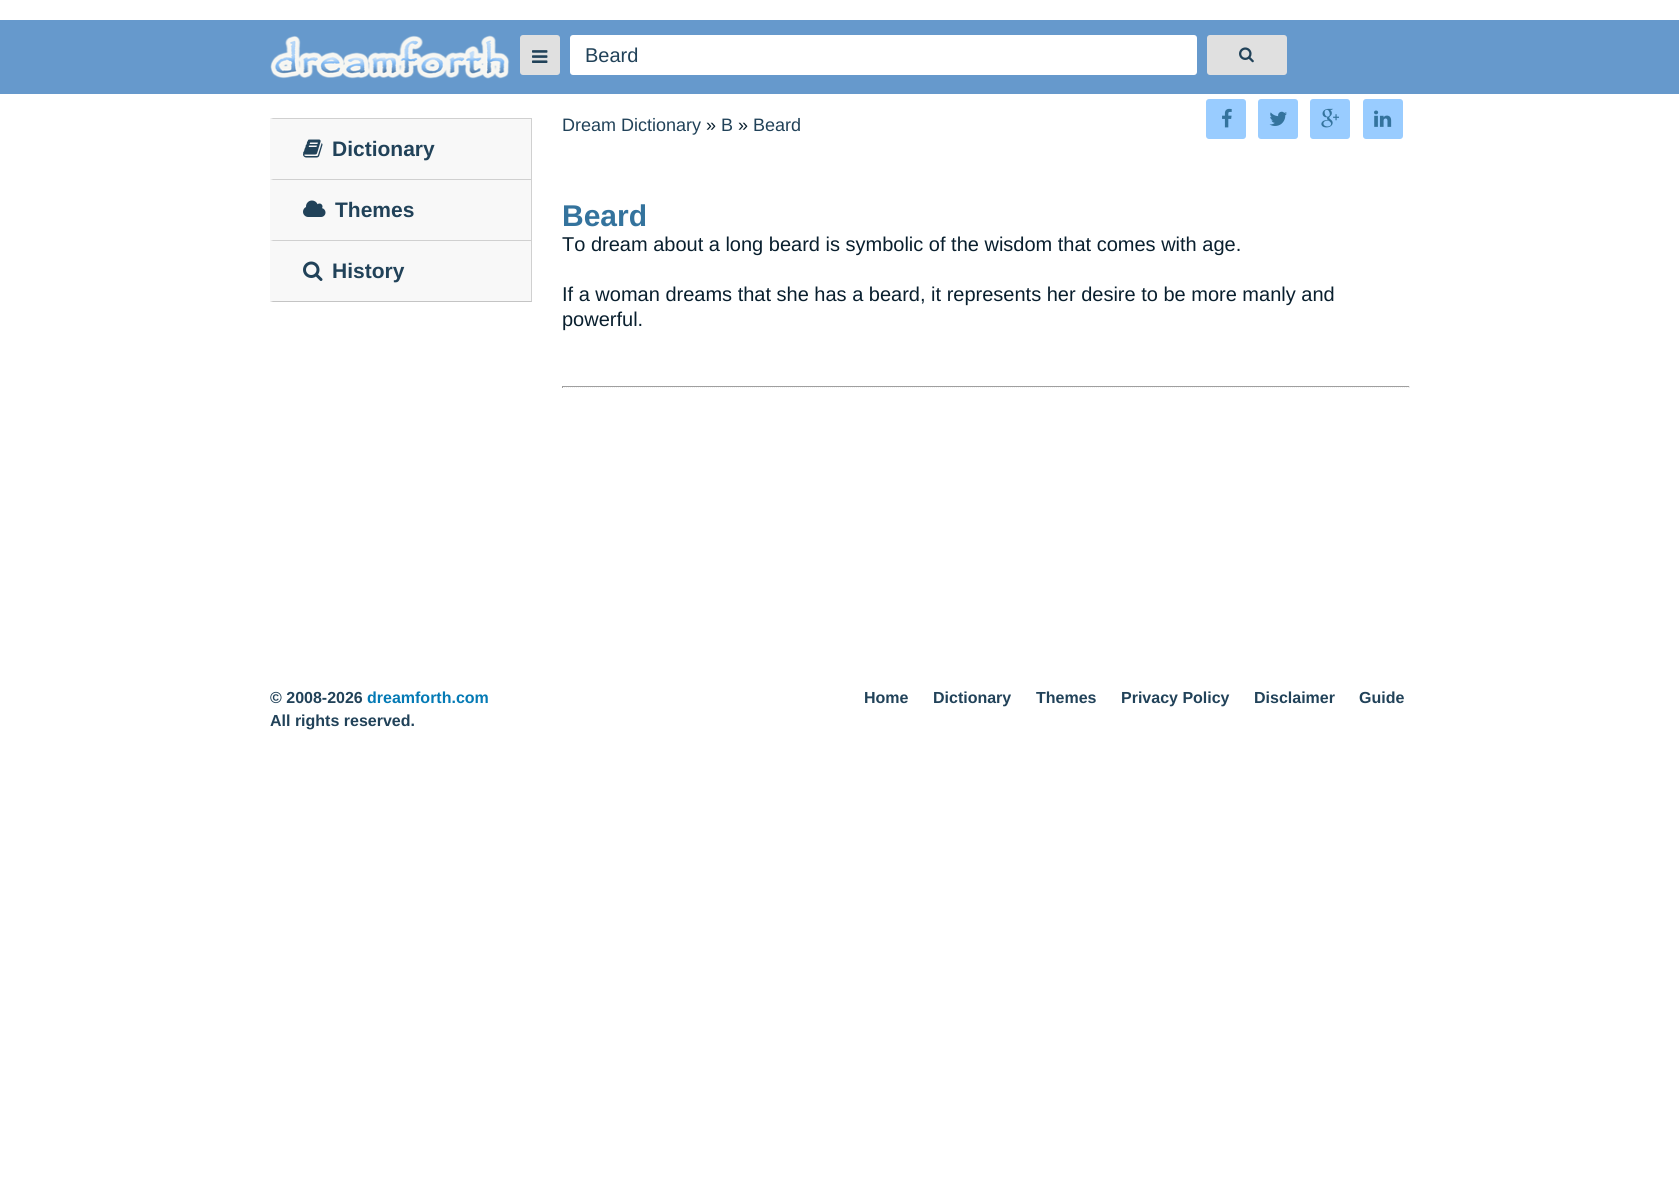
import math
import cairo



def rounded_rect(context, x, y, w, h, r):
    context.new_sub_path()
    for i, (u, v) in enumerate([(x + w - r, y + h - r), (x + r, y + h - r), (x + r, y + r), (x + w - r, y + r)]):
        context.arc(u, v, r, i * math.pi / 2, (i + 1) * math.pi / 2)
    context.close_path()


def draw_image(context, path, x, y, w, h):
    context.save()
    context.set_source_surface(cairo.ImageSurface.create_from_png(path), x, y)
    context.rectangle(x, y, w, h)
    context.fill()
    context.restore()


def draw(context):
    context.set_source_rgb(1, 1, 1)
    context.paint()
    context.set_source_rgb(102 / 255, 153 / 255, 204 / 255)
    context.rectangle(0, 20, 1679, 74)
    context.fill()
    draw_image(context, "images/1.png", 270, 35, 240, 44)
    context.set_source_rgb(224 / 255, 224 / 255, 224 / 255)
    rounded_rect(context, 520, 35, 40, 40, 3)
    context.fill()
    draw_image(context, "images/2.png", 532, 50, 16, 13)
    context.set_source_rgb(1, 1, 1)
    rounded_rect(context, 570, 35, 627, 40, 3)
    context.fill()
    context.set_source_rgb(224 / 255, 224 / 255, 224 / 255)
    rounded_rect(context, 1207, 35, 80, 40, 3)
    context.fill()
    draw_image(context, "images/3.png", 1239, 47, 15, 16)
    context.set_source_rgb(248 / 255, 248 / 255, 248 / 255)
    context.rectangle(270, 118, 261, 184)
    context.fill()
    context.set_source_rgb(208 / 255, 208 / 255, 208 / 255)
    context.new_path()
    context.move_to(270, 118)
    context.line_to(532, 118)
    context.line_to(531, 119)
    context.line_to(273, 119)
    context.close_path()
    context.fill()
    context.rectangle(531, 118, 1, 61)
    context.fill()
    draw_image(context, "images/4.png", 303, 139, 20, 19)
    context.new_path()
    context.move_to(270, 179)
    context.line_to(532, 179)
    context.line_to(531, 180)
    context.line_to(273, 180)
    context.close_path()
    context.fill()
    context.rectangle(531, 179, 1, 61)
    context.fill()
    draw_image(context, "images/5.png", 303, 200, 23, 17)
    context.new_path()
    context.move_to(270, 240)
    context.line_to(532, 240)
    context.line_to(531, 241)
    context.line_to(273, 241)
    context.close_path()
    context.fill()
    context.rectangle(531, 240, 1, 62)
    context.fill()
    context.set_source_rgb(196 / 255, 196 / 255, 196 / 255)
    context.new_path()
    context.move_to(532, 302)
    context.line_to(270, 302)
    context.line_to(273, 301)
    context.line_to(531, 301)
    context.close_path()
    context.fill()
    draw_image(context, "images/6.png", 303, 261, 20, 20)
    context.set_source_rgb(153 / 255, 204 / 255, 1)
    rounded_rect(context, 1206, 99, 40, 40, 3)
    context.fill()
    draw_image(context, "images/7.png", 1222, 108, 10, 20)
    rounded_rect(context, 1258, 99, 40, 40, 3)
    context.fill()
    draw_image(context, "images/8.png", 1269, 111, 18, 15)
    rounded_rect(context, 1310, 99, 40, 40, 3)
    context.fill()
    draw_image(context, "images/9.png", 1321, 108, 18, 20)
    rounded_rect(context, 1363, 99, 40, 40, 3)
    context.fill()
    draw_image(context, "images/10.png", 1374, 110, 18, 17)
    context.set_source_rgb(159 / 255, 159 / 255, 159 / 255)
    context.rectangle(562, 386, 848, 1)
    context.fill()
    context.set_source_rgb(238 / 255, 238 / 255, 238 / 255)
    context.rectangle(1409, 386, 1, 2)
    context.fill()
    context.new_path()
    context.move_to(562, 387.5)
    context.line_to(1410, 387.5)
    context.set_source_rgb(241 / 255, 241 / 255, 241 / 255)
    context.set_line_width(1)
    context.set_dash([1, 1])
    context.stroke()
    context.set_source_rgb(159 / 255, 159 / 255, 159 / 255)
    context.rectangle(562, 386, 1, 2)
    context.fill()
    context.select_font_face("Liberation Sans")
    context.set_font_size(20)
    context.set_source_rgb(33 / 255, 66 / 255, 89 / 255)
    context.move_to(585, 62)
    context.show_text("Beard")
    context.select_font_face("Liberation Sans", cairo.FontSlant.NORMAL, cairo.FontWeight.BOLD)
    context.set_font_size(21)
    context.move_to(332, 156)
    context.show_text("Dictionary")
    context.move_to(335, 217)
    context.show_text("Themes")
    context.move_to(332, 278)
    context.show_text("History")
    context.select_font_face("Liberation Sans")
    context.set_font_size(18)
    context.move_to(562, 131)
    context.show_text("Dream Dictionary")
    context.set_source_rgb(9 / 255, 31 / 255, 46 / 255)
    context.move_to(706, 131)
    context.show_text("»")
    context.set_source_rgb(33 / 255, 66 / 255, 89 / 255)
    context.move_to(721, 131)
    context.show_text("B")
    context.set_source_rgb(9 / 255, 31 / 255, 46 / 255)
    context.move_to(738, 131)
    context.show_text("»")
    context.set_source_rgb(33 / 255, 66 / 255, 89 / 255)
    context.move_to(753, 131)
    context.show_text("Beard")
    context.select_font_face("Liberation Sans", cairo.FontSlant.NORMAL, cairo.FontWeight.BOLD)
    context.set_font_size(30)
    context.set_source_rgb(52 / 255, 115 / 255, 157 / 255)
    context.move_to(562, 226)
    context.show_text("Beard")
    context.select_font_face("Liberation Sans")
    context.set_font_size(20)
    context.set_source_rgb(9 / 255, 31 / 255, 46 / 255)
    context.move_to(562, 251)
    context.show_text("To dream about a long beard is symbolic of the wisdom that comes with age.")
    context.move_to(562, 301)
    context.show_text("If a woman dreams that she has a beard, it represents her desire to be more manly and")
    context.move_to(562, 326)
    context.show_text("powerful.")
    context.select_font_face("Liberation Sans", cairo.FontSlant.NORMAL, cairo.FontWeight.BOLD)
    context.set_font_size(16)
    context.set_source_rgb(33 / 255, 66 / 255, 89 / 255)
    context.move_to(270, 703)
    context.show_text("© 2008-2026")
    context.set_source_rgb(4 / 255, 122 / 255, 181 / 255)
    context.move_to(367, 703)
    context.show_text("dreamforth.com")
    context.set_source_rgb(33 / 255, 66 / 255, 89 / 255)
    context.move_to(270, 726)
    context.show_text("All rights reserved.")
    context.move_to(864, 703)
    context.show_text("Home")
    context.move_to(933, 703)
    context.show_text("Dictionary")
    context.move_to(1036, 703)
    context.show_text("Themes")
    context.move_to(1121, 703)
    context.show_text("Privacy Policy")
    context.move_to(1254, 703)
    context.show_text("Disclaimer")
    context.move_to(1359, 703)
    context.show_text("Guide")


surface = cairo.ImageSurface(cairo.Format.RGB24, 1679, 1178)
context = cairo.Context(surface)
options = cairo.FontOptions()
options.set_hint_metrics(cairo.HintMetrics.OFF)
options.set_hint_style(cairo.HintStyle.NONE)
context.set_font_options(options)
context.set_miter_limit(4)
draw(context)
surface.write_to_png("out.png")
